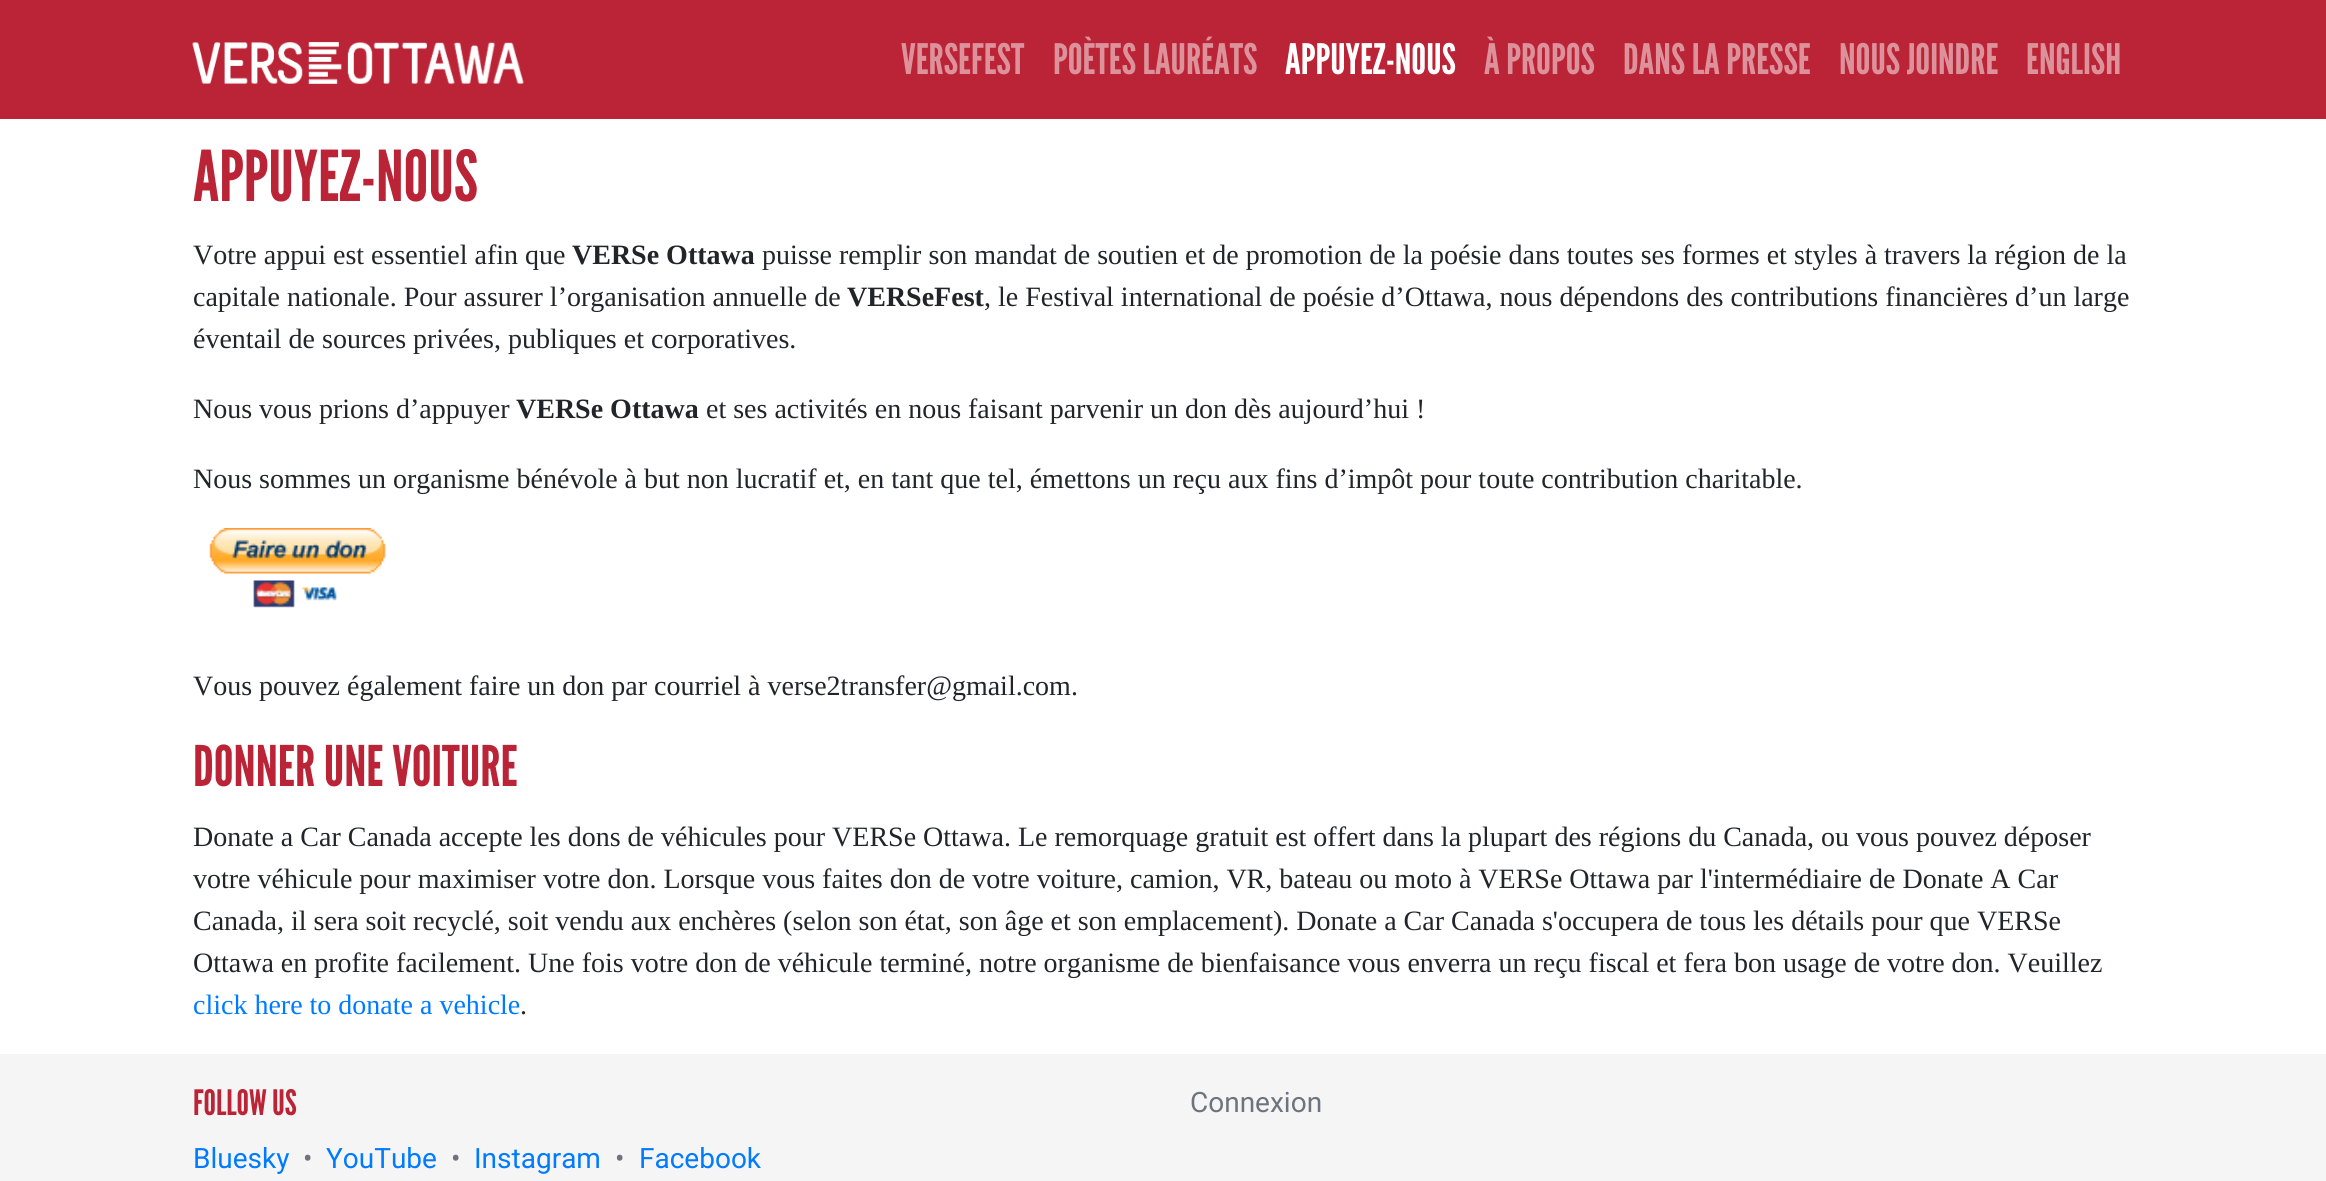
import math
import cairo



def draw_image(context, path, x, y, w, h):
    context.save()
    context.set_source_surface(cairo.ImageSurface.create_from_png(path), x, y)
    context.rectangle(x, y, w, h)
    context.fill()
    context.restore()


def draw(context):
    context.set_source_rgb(1, 1, 1)
    context.paint()
    context.set_source_rgb(187 / 255, 36 / 255, 54 / 255)
    context.rectangle(0, 0, 2326, 119)
    context.fill()
    draw_image(context, "images/1.png", 192, 42, 332, 42)
    draw_image(context, "images/2.png", 209, 528, 177, 80)
    context.set_source_rgb(245 / 255, 245 / 255, 245 / 255)
    context.rectangle(0, 1054, 2326, 127)
    context.fill()
    context.select_font_face("League Gothic")
    context.set_font_size(42)
    context.set_source_rgb(221 / 255, 146 / 255, 155 / 255)
    context.move_to(901, 74)
    context.show_text("VERSEFEST")
    context.move_to(1053, 74)
    context.show_text("POÈTES LAURÉATS")
    context.set_source_rgb(1, 1, 1)
    context.move_to(1285, 74)
    context.show_text("APPUYEZ-NOUS")
    context.set_source_rgb(221 / 255, 146 / 255, 155 / 255)
    context.move_to(1484, 74)
    context.show_text("À PROPOS")
    context.move_to(1623, 74)
    context.show_text("DANS LA PRESSE")
    context.move_to(1839, 74)
    context.show_text("NOUS JOINDRE")
    context.move_to(2026, 74)
    context.show_text("ENGLISH")
    context.set_font_size(70)
    context.set_source_rgb(187 / 255, 36 / 255, 54 / 255)
    context.move_to(193, 201)
    context.show_text("APPUYEZ-NOUS")
    context.select_font_face("Liberation Serif")
    context.set_font_size(28)
    context.set_source_rgb(33 / 255, 37 / 255, 41 / 255)
    context.move_to(193, 264)
    context.show_text("Votre appui est essentiel afin que")
    context.select_font_face("Liberation Serif", cairo.FontSlant.NORMAL, cairo.FontWeight.BOLD)
    context.move_to(572, 264)
    context.show_text("VERSe Ottawa")
    context.select_font_face("Liberation Serif")
    context.move_to(762, 264)
    context.show_text("puisse remplir son mandat de soutien et de promotion de la poésie dans toutes ses formes et styles à travers la région de la")
    context.move_to(193, 306)
    context.show_text("capitale nationale. Pour assurer l’organisation annuelle de")
    context.select_font_face("Liberation Serif", cairo.FontSlant.NORMAL, cairo.FontWeight.BOLD)
    context.move_to(847, 306)
    context.show_text("VERSeFest")
    context.select_font_face("Liberation Serif")
    context.move_to(984, 306)
    context.show_text(", le Festival international de poésie d’Ottawa, nous dépendons des contributions financières d’un large")
    context.move_to(193, 348)
    context.show_text("éventail de sources privées, publiques et corporatives.")
    context.move_to(193, 418)
    context.show_text("Nous vous prions d’appuyer")
    context.select_font_face("Liberation Serif", cairo.FontSlant.NORMAL, cairo.FontWeight.BOLD)
    context.move_to(516, 418)
    context.show_text("VERSe Ottawa")
    context.select_font_face("Liberation Serif")
    context.move_to(706, 418)
    context.show_text("et ses activités en nous faisant parvenir un don dès aujourd’hui !")
    context.move_to(193, 488)
    context.show_text("Nous sommes un organisme bénévole à but non lucratif et, en tant que tel, émettons un reçu aux fins d’impôt pour toute contribution charitable.")
    context.move_to(193, 695)
    context.show_text("Vous pouvez également faire un don par courriel à verse2transfer@gmail.com.")
    context.select_font_face("League Gothic")
    context.set_font_size(56)
    context.set_source_rgb(187 / 255, 36 / 255, 54 / 255)
    context.move_to(193, 786)
    context.show_text("DONNER UNE VOITURE")
    context.select_font_face("Liberation Serif")
    context.set_font_size(28)
    context.set_source_rgb(33 / 255, 37 / 255, 41 / 255)
    context.move_to(193, 846)
    context.show_text("Donate a Car Canada accepte les dons de véhicules pour VERSe Ottawa. Le remorquage gratuit est offert dans la plupart des régions du Canada, ou vous pouvez déposer")
    context.move_to(193, 888)
    context.show_text("votre véhicule pour maximiser votre don. Lorsque vous faites don de votre voiture, camion, VR, bateau ou moto à VERSe Ottawa par l'intermédiaire de Donate A Car")
    context.move_to(193, 930)
    context.show_text("Canada, il sera soit recyclé, soit vendu aux enchères (selon son état, son âge et son emplacement). Donate a Car Canada s'occupera de tous les détails pour que VERSe")
    context.move_to(193, 972)
    context.show_text("Ottawa en profite facilement. Une fois votre don de véhicule terminé, notre organisme de bienfaisance vous enverra un reçu fiscal et fera bon usage de votre don. Veuillez")
    context.set_source_rgb(0, 123 / 255, 1)
    context.move_to(193, 1014)
    context.show_text("click here to donate a vehicle")
    context.set_source_rgb(33 / 255, 37 / 255, 41 / 255)
    context.move_to(520, 1014)
    context.show_text(".")
    context.select_font_face("League Gothic")
    context.set_font_size(35)
    context.set_source_rgb(187 / 255, 36 / 255, 54 / 255)
    context.move_to(193, 1115)
    context.show_text("FOLLOW US")
    context.select_font_face("Roboto")
    context.set_font_size(28)
    context.set_source_rgb(0, 123 / 255, 1)
    context.move_to(193, 1168)
    context.show_text("Bluesky")
    context.set_source_rgb(108 / 255, 117 / 255, 125 / 255)
    context.move_to(303, 1168)
    context.show_text("•")
    context.set_source_rgb(0, 123 / 255, 1)
    context.move_to(326, 1168)
    context.show_text("YouTube")
    context.set_source_rgb(108 / 255, 117 / 255, 125 / 255)
    context.move_to(451, 1168)
    context.show_text("•")
    context.set_source_rgb(0, 123 / 255, 1)
    context.move_to(474, 1168)
    context.show_text("Instagram")
    context.set_source_rgb(108 / 255, 117 / 255, 125 / 255)
    context.move_to(615, 1168)
    context.show_text("•")
    context.set_source_rgb(0, 123 / 255, 1)
    context.move_to(639, 1168)
    context.show_text("Facebook")
    context.set_source_rgb(108 / 255, 117 / 255, 125 / 255)
    context.move_to(1190, 1112)
    context.show_text("Connexion")


surface = cairo.ImageSurface(cairo.Format.RGB24, 2326, 1181)
context = cairo.Context(surface)
options = cairo.FontOptions()
options.set_hint_metrics(cairo.HintMetrics.OFF)
options.set_hint_style(cairo.HintStyle.NONE)
context.set_font_options(options)
context.set_miter_limit(4)
draw(context)
surface.write_to_png("out.png")
